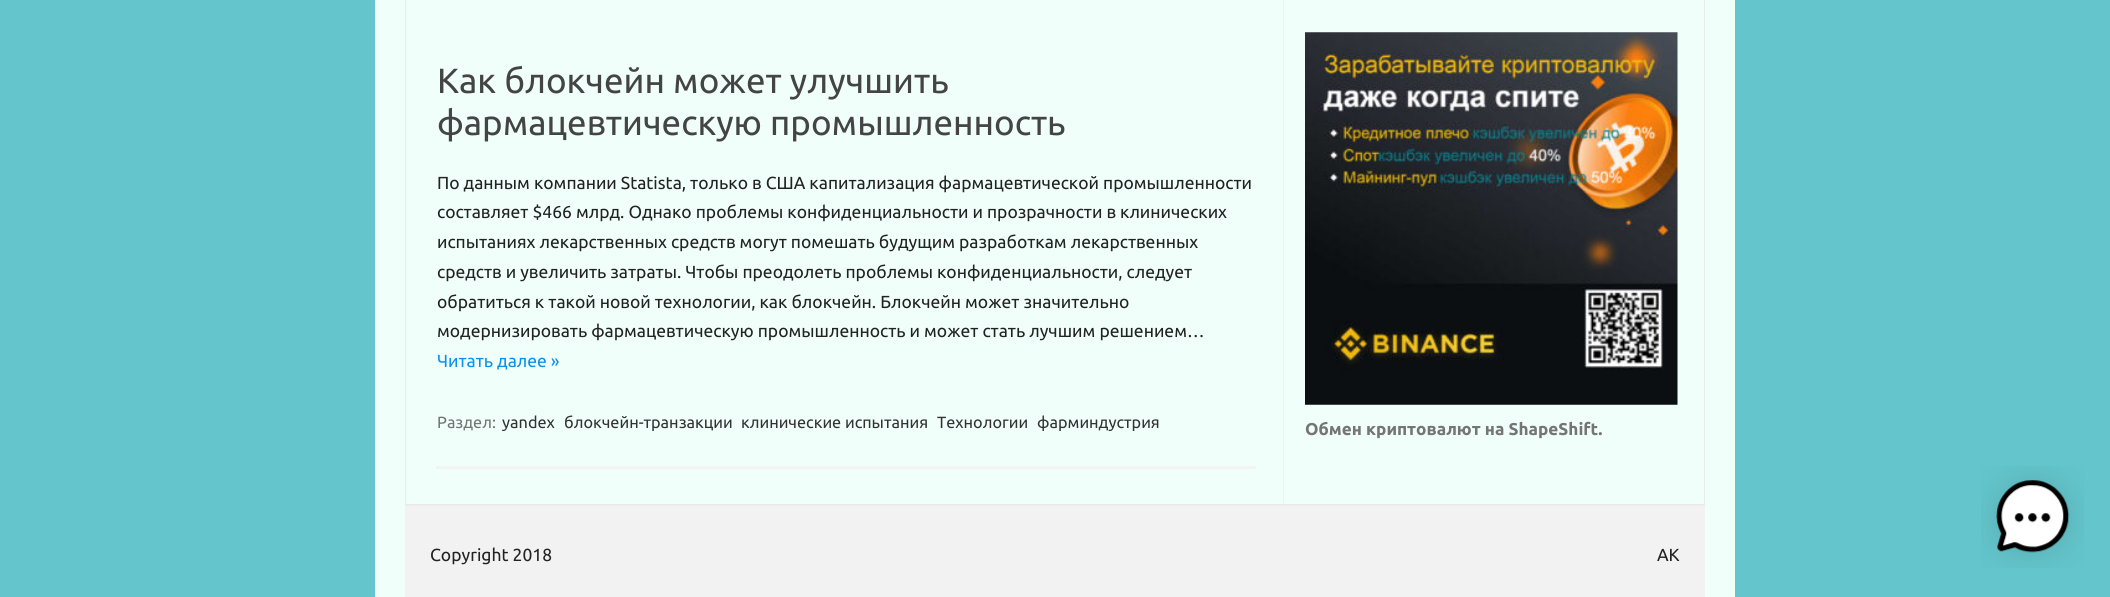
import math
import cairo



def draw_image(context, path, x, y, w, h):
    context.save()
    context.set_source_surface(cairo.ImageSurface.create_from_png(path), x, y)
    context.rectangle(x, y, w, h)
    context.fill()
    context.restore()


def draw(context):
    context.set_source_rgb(100 / 255, 197 / 255, 204 / 255)
    context.paint()
    context.set_source_rgb(240 / 255, 1, 250 / 255)
    context.rectangle(375, 0, 1360, 597)
    context.fill()
    context.rectangle(405.5, -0.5, 1299, 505)
    context.set_source_rgb(233 / 255, 233 / 255, 233 / 255)
    context.set_line_width(1)
    context.stroke()
    context.set_source_rgb(241 / 255, 241 / 255, 241 / 255)
    context.rectangle(1283, 0, 1, 504)
    context.fill()
    context.set_source_rgb(243 / 255, 243 / 255, 243 / 255)
    context.rectangle(436, 466, 820, 3)
    context.fill()
    draw_image(context, "images/1.png", 1305, 32, 373, 373)
    context.set_source_rgb(242 / 255, 242 / 255, 242 / 255)
    context.rectangle(405, 506, 1300, 91)
    context.fill()
    context.set_source_rgb(237 / 255, 237 / 255, 237 / 255)
    context.rectangle(405, 505, 1300, 1)
    context.fill()
    draw_image(context, "images/2.png", 1981, 466, 103, 102)
    context.select_font_face("Ubuntu")
    context.set_font_size(35)
    context.set_source_rgb(68 / 255, 68 / 255, 68 / 255)
    context.move_to(437, 93)
    context.show_text("Как блокчейн может улучшить")
    context.move_to(437, 135)
    context.show_text("фармацевтическую промышленность")
    context.set_font_size(17.5)
    context.set_source_rgb(34 / 255, 34 / 255, 34 / 255)
    context.move_to(437, 189)
    context.show_text("По данным компании Statista, только в США капитализация фармацевтической промышленности")
    context.move_to(437, 218)
    context.show_text("составляет $466 млрд. Однако проблемы конфиденциальности и прозрачности в клинических")
    context.move_to(437, 248)
    context.show_text("испытаниях лекарственных средств могут помешать будущим разработкам лекарственных")
    context.move_to(437, 278)
    context.show_text("средств и увеличить затраты. Чтобы преодолеть проблемы конфиденциальности, следует")
    context.move_to(437, 308)
    context.show_text("обратиться к такой новой технологии, как блокчейн. Блокчейн может значительно")
    context.move_to(437, 337)
    context.show_text("модернизировать фармацевтическую промышленность и может стать лучшим решением…")
    context.set_source_rgb(11 / 255, 145 / 255, 234 / 255)
    context.move_to(437, 367)
    context.show_text("Читать далее »")
    context.set_font_size(16.25)
    context.set_source_rgb(117 / 255, 117 / 255, 117 / 255)
    context.move_to(437, 428)
    context.show_text("Раздел:")
    context.set_source_rgb(51 / 255, 51 / 255, 51 / 255)
    context.move_to(502, 428)
    context.show_text("yandex")
    context.move_to(564, 428)
    context.show_text("блокчейн-транзакции")
    context.move_to(741, 428)
    context.show_text("клинические испытания")
    context.move_to(937, 428)
    context.show_text("Технологии")
    context.move_to(1037, 428)
    context.show_text("фарминдустрия")
    context.select_font_face("Ubuntu", cairo.FontSlant.NORMAL, cairo.FontWeight.BOLD)
    context.set_font_size(17.1)
    context.set_source_rgb(117 / 255, 117 / 255, 117 / 255)
    context.move_to(1305, 435)
    context.show_text("Обмен криптовалют на ShapeShift.")
    context.select_font_face("Ubuntu")
    context.set_font_size(17.5)
    context.set_source_rgb(34 / 255, 34 / 255, 34 / 255)
    context.move_to(430, 561)
    context.show_text("Copyright 2018")
    context.move_to(1657, 561)
    context.show_text("AK")


surface = cairo.ImageSurface(cairo.Format.RGB24, 2110, 597)
context = cairo.Context(surface)
options = cairo.FontOptions()
options.set_hint_metrics(cairo.HintMetrics.OFF)
options.set_hint_style(cairo.HintStyle.NONE)
context.set_font_options(options)
context.set_miter_limit(4)
draw(context)
surface.write_to_png("out.png")
